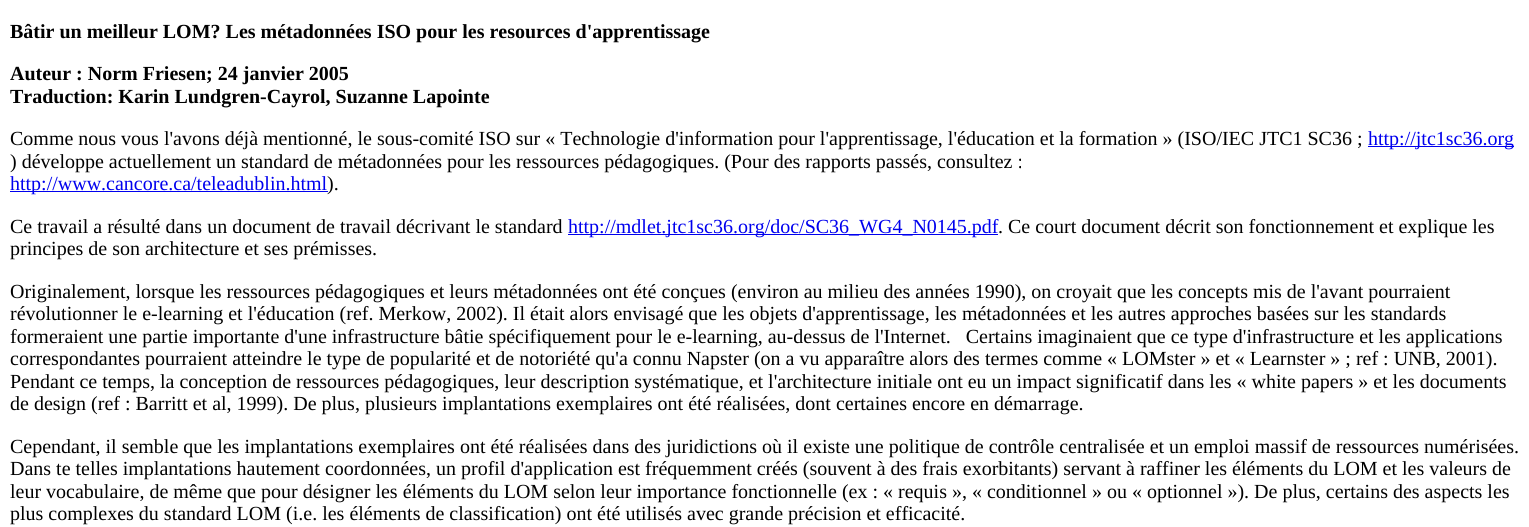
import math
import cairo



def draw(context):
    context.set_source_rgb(1, 1, 1)
    context.paint()
    context.set_source_rgb(0, 0, 238 / 255)
    context.rectangle(1368, 146, 146, 1)
    context.fill()
    context.rectangle(10, 191, 318, 1)
    context.fill()
    context.rectangle(568, 234, 430, 1)
    context.fill()
    context.select_font_face("Liberation Serif", cairo.FontSlant.NORMAL, cairo.FontWeight.BOLD)
    context.set_font_size(20)
    context.set_source_rgb(0, 0, 0)
    context.move_to(10, 38)
    context.show_text("Bâtir un meilleur LOM? Les métadonnées ISO pour les resources d'apprentissage")
    context.move_to(10, 80)
    context.show_text("Auteur : Norm Friesen; 24 janvier 2005")
    context.move_to(10, 103)
    context.show_text("Traduction: Karin Lundgren-Cayrol, Suzanne Lapointe")
    context.select_font_face("Liberation Serif")
    context.move_to(10, 145)
    context.show_text("Comme nous vous l'avons déjà mentionné, le sous-comité ISO sur « Technologie d'information pour l'apprentissage, l'éducation et la formation » (ISO/IEC JTC1 SC36 ;")
    context.set_source_rgb(0, 0, 238 / 255)
    context.move_to(1368, 145)
    context.show_text("http://jtc1sc36.org")
    context.set_source_rgb(0, 0, 0)
    context.move_to(10, 168)
    context.show_text(") développe actuellement un standard de métadonnées pour les ressources pédagogiques. (Pour des rapports passés, consultez :")
    context.set_source_rgb(0, 0, 238 / 255)
    context.move_to(10, 190)
    context.show_text("http://www.cancore.ca/teleadublin.html")
    context.set_source_rgb(0, 0, 0)
    context.move_to(327, 190)
    context.show_text(").")
    context.move_to(10, 233)
    context.show_text("Ce travail a résulté dans un document de travail décrivant le standard")
    context.set_source_rgb(0, 0, 238 / 255)
    context.move_to(568, 233)
    context.show_text("http://mdlet.jtc1sc36.org/doc/SC36_WG4_N0145.pdf")
    context.set_source_rgb(0, 0, 0)
    context.move_to(998, 233)
    context.show_text(". Ce court document décrit son fonctionnement et explique les")
    context.move_to(10, 255)
    context.show_text("principes de son architecture et ses prémisses.")
    context.move_to(10, 298)
    context.show_text("Originalement, lorsque les ressources pédagogiques et leurs métadonnées ont été conçues (environ au milieu des années 1990), on croyait que les concepts mis de l'avant pourraient")
    context.move_to(10, 320)
    context.show_text("révolutionner le e-learning et l'éducation (ref. Merkow, 2002). Il était alors envisagé que les objets d'apprentissage, les métadonnées et les autres approches basées sur les standards")
    context.move_to(10, 343)
    context.show_text("formeraient une partie importante d'une infrastructure bâtie spécifiquement pour le e-learning, au-dessus de l'Internet.   Certains imaginaient que ce type d'infrastructure et les applications")
    context.move_to(10, 365)
    context.show_text("correspondantes pourraient atteindre le type de popularité et de notoriété qu'a connu Napster (on a vu apparaître alors des termes comme « LOMster » et « Learnster » ; ref : UNB, 2001).")
    context.move_to(10, 388)
    context.show_text("Pendant ce temps, la conception de ressources pédagogiques, leur description systématique, et l'architecture initiale ont eu un impact significatif dans les « white papers » et les documents")
    context.move_to(10, 410)
    context.show_text("de design (ref : Barritt et al, 1999). De plus, plusieurs implantations exemplaires ont été réalisées, dont certaines encore en démarrage.")
    context.move_to(10, 453)
    context.show_text("Cependant, il semble que les implantations exemplaires ont été réalisées dans des juridictions où il existe une politique de contrôle centralisée et un emploi massif de ressources numérisées.")
    context.move_to(10, 475)
    context.show_text("Dans te telles implantations hautement coordonnées, un profil d'application est fréquemment créés (souvent à des frais exorbitants) servant à raffiner les éléments du LOM et les valeurs de")
    context.move_to(10, 498)
    context.show_text("leur vocabulaire, de même que pour désigner les éléments du LOM selon leur importance fonctionnelle (ex : « requis », « conditionnel » ou « optionnel »). De plus, certains des aspects les")
    context.move_to(10, 520)
    context.show_text("plus complexes du standard LOM (i.e. les éléments de classification) ont été utilisés avec grande précision et efficacité.")


surface = cairo.ImageSurface(cairo.Format.RGB24, 1529, 527)
context = cairo.Context(surface)
options = cairo.FontOptions()
options.set_hint_metrics(cairo.HintMetrics.OFF)
options.set_hint_style(cairo.HintStyle.NONE)
context.set_font_options(options)
context.set_miter_limit(4)
draw(context)
surface.write_to_png("out.png")
